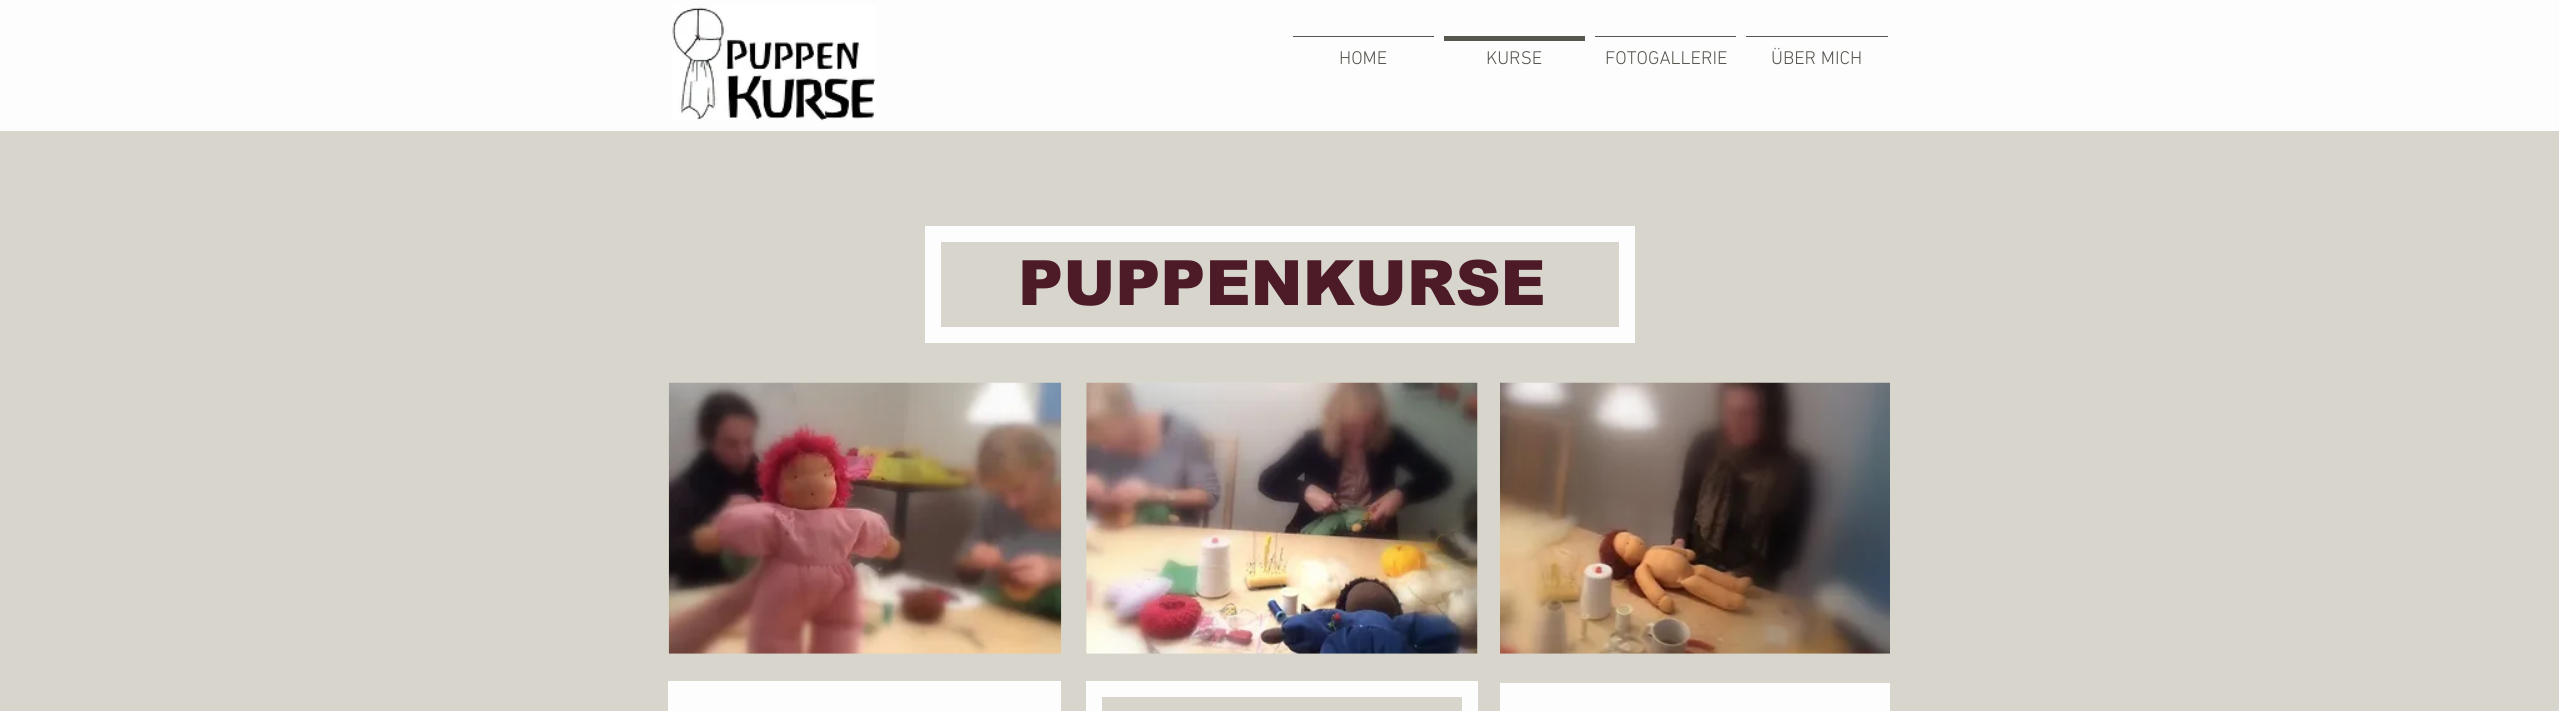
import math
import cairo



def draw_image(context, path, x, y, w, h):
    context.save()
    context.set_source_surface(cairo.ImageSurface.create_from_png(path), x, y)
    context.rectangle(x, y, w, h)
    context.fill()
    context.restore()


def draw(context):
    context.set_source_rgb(215 / 255, 213 / 255, 204 / 255)
    context.paint()
    context.set_source_rgb(254 / 255, 253 / 255, 253 / 255)
    context.rectangle(0, 0, 2559, 131)
    context.fill()
    draw_image(context, "images/1.png", 672, 5, 204, 116)
    context.set_source_rgb(87 / 255, 86 / 255, 79 / 255)
    context.rectangle(1293, 36, 141, 1)
    context.fill()
    context.rectangle(1444, 36, 141, 5)
    context.fill()
    context.rectangle(1595, 36, 141, 1)
    context.fill()
    context.rectangle(1746, 36, 142, 1)
    context.fill()
    context.rectangle(933, 234, 694, 101)
    context.set_source_rgb(254 / 255, 253 / 255, 253 / 255)
    context.set_line_width(16)
    context.stroke()
    draw_image(context, "images/2.png", 668, 382, 394, 272)
    draw_image(context, "images/3.png", 1086, 382, 392, 272)
    draw_image(context, "images/4.png", 1500, 382, 390, 272)
    context.rectangle(668, 681, 393, 30)
    context.fill()
    context.rectangle(1094, 689, 376, 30)
    context.stroke()
    context.rectangle(1500, 683, 390, 28)
    context.fill()
    context.select_font_face("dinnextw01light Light")
    context.set_font_size(18.75)
    context.set_source_rgb(87 / 255, 86 / 255, 79 / 255)
    context.move_to(1339, 64)
    context.show_text("HOME")
    context.move_to(1486, 64)
    context.show_text("KURSE")
    context.move_to(1605, 64)
    context.show_text("FOTOGALLERIE")
    context.move_to(1771, 64)
    context.show_text("ÜBER MICH")
    context.select_font_face("arial Black")
    context.set_font_size(62.5)
    context.set_source_rgb(77 / 255, 27 / 255, 40 / 255)
    context.move_to(1018, 305)
    context.show_text("PUPPENKURSE")


surface = cairo.ImageSurface(cairo.Format.RGB24, 2559, 711)
context = cairo.Context(surface)
options = cairo.FontOptions()
options.set_hint_metrics(cairo.HintMetrics.OFF)
options.set_hint_style(cairo.HintStyle.NONE)
context.set_font_options(options)
context.set_miter_limit(4)
draw(context)
surface.write_to_png("out.png")
